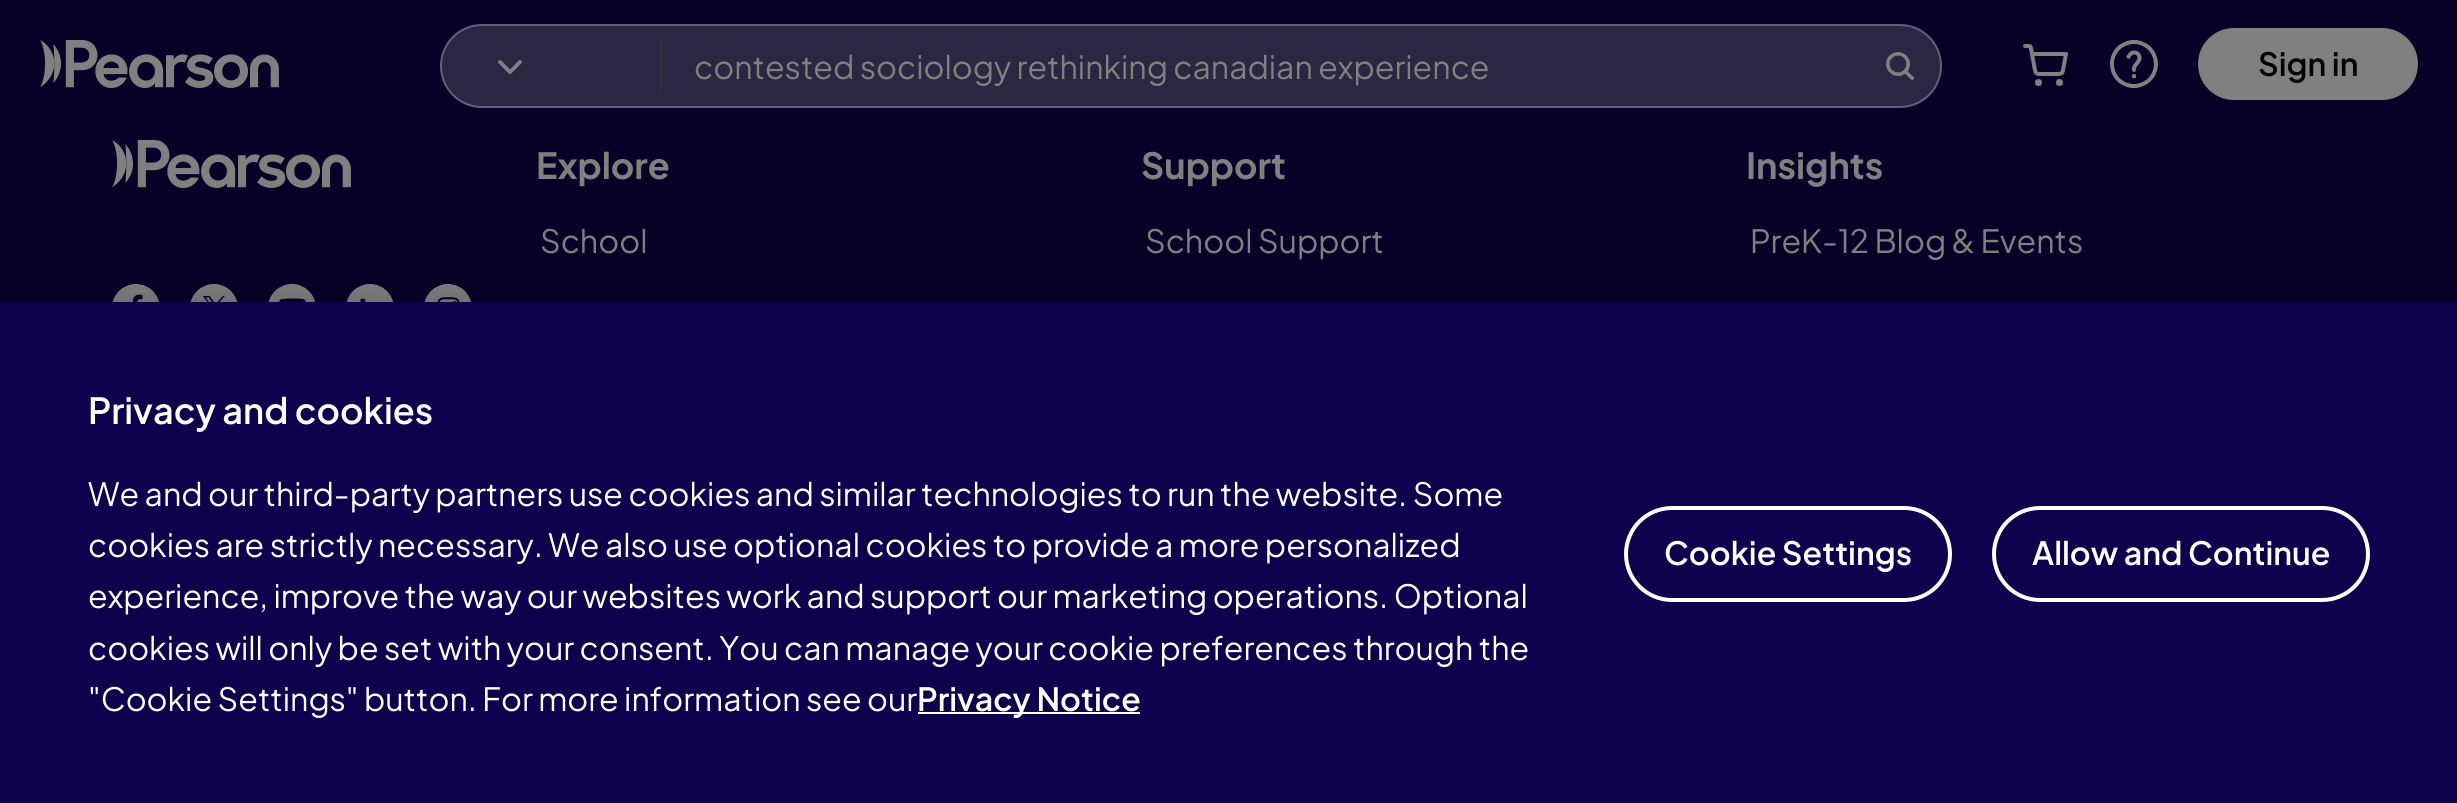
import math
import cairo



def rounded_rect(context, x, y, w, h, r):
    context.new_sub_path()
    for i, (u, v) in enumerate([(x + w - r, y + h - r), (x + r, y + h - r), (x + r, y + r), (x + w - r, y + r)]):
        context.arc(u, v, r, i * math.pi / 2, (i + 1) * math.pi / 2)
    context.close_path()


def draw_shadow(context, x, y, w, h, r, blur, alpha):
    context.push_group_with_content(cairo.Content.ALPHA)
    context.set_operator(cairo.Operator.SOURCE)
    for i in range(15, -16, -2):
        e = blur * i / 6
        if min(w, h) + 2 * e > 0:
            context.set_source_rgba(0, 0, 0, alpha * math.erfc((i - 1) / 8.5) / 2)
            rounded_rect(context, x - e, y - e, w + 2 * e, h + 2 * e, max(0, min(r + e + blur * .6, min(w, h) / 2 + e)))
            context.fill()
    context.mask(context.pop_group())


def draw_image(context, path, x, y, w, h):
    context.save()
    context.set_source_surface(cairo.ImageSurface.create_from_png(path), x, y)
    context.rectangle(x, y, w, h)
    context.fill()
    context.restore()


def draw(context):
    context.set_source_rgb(7 / 255, 0, 39 / 255)
    context.paint()
    draw_image(context, "images/1.png", 40, 40, 239, 48)
    context.set_source_rgb(43 / 255, 38 / 255, 65 / 255)
    rounded_rect(context, 441, 25, 1500, 82, 41)
    context.fill_preserve()
    context.set_source_rgb(97 / 255, 96 / 255, 128 / 255)
    context.stroke()
    draw_image(context, "images/2.png", 497, 60, 25, 14)
    context.set_source_rgb(51 / 255, 49 / 255, 56 / 255)
    context.rectangle(660, 40, 2, 52)
    context.fill()
    draw_image(context, "images/3.png", 1886, 52, 28, 28)
    draw_image(context, "images/4.png", 2023, 44, 45, 42)
    draw_image(context, "images/5.png", 2110, 40, 48, 48)
    context.set_source_rgb(128 / 255, 128 / 255, 128 / 255)
    rounded_rect(context, 2198, 28, 220, 72, 36)
    context.fill()
    draw_image(context, "images/1.png", 112, 140, 239, 48)
    draw_image(context, "images/6.png", 112, 284, 47, 18)
    draw_image(context, "images/7.png", 190, 284, 47, 18)
    draw_image(context, "images/8.png", 268, 284, 47, 18)
    draw_image(context, "images/9.png", 346, 284, 47, 18)
    draw_image(context, "images/10.png", 424, 284, 47, 18)
    context.set_source_rgb(0, 0, 0)
    draw_shadow(context, 0, 302, 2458, 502, 0, 18, 0.2)
    context.set_source_rgb(13 / 255, 0, 77 / 255)
    context.rectangle(0, 302, 2457, 501)
    context.fill()
    context.set_source_rgb(254 / 255, 254 / 255, 254 / 255)
    context.rectangle(918, 712, 222, 2)
    context.fill()
    rounded_rect(context, 1626, 508, 324, 92, 46)
    context.set_source_rgb(1, 1, 1)
    context.set_line_width(4)
    context.stroke()
    rounded_rect(context, 1994, 508, 374, 92, 46)
    context.stroke()
    context.select_font_face("Plus Jakarta Sans")
    context.set_font_size(32)
    context.set_source_rgb(128 / 255, 128 / 255, 128 / 255)
    context.move_to(694, 79)
    context.show_text("contested sociology rethinking canadian experience")
    context.select_font_face("Plus Jakarta Sans SemiBold")
    context.set_source_rgb(3 / 255, 3 / 255, 5 / 255)
    context.move_to(2258, 76)
    context.show_text("Sign in")
    context.select_font_face("Plus Jakarta Sans", cairo.FontSlant.NORMAL, cairo.FontWeight.BOLD)
    context.set_font_size(36)
    context.set_source_rgb(128 / 255, 128 / 255, 128 / 255)
    context.move_to(536, 179)
    context.show_text("Explore")
    context.select_font_face("Plus Jakarta Sans")
    context.set_font_size(32)
    context.move_to(540, 253)
    context.show_text("School")
    context.select_font_face("Plus Jakarta Sans", cairo.FontSlant.NORMAL, cairo.FontWeight.BOLD)
    context.set_font_size(36)
    context.move_to(1141, 179)
    context.show_text("Support")
    context.select_font_face("Plus Jakarta Sans")
    context.set_font_size(32)
    context.move_to(1145, 253)
    context.show_text("School Support")
    context.select_font_face("Plus Jakarta Sans", cairo.FontSlant.NORMAL, cairo.FontWeight.BOLD)
    context.set_font_size(36)
    context.move_to(1746, 179)
    context.show_text("Insights")
    context.select_font_face("Plus Jakarta Sans")
    context.set_font_size(32)
    context.move_to(1750, 253)
    context.show_text("PreK-12 Blog & Events")
    context.select_font_face("Plus Jakarta Sans SemiBold")
    context.set_font_size(36)
    context.set_source_rgb(1, 1, 1)
    context.move_to(88, 424)
    context.show_text("Privacy and cookies")
    context.select_font_face("Plus Jakarta Sans")
    context.set_font_size(32)
    context.move_to(88, 506)
    context.show_text("We and our third-party partners use cookies and similar technologies to run the website. Some")
    context.move_to(88, 557)
    context.show_text("cookies are strictly necessary. We also use optional cookies to provide a more personalized")
    context.move_to(88, 608)
    context.show_text("experience, improve the way our websites work and support our marketing operations. Optional")
    context.move_to(88, 660)
    context.show_text("cookies will only be set with your consent. You can manage your cookie preferences through the")
    context.move_to(88, 711)
    context.show_text("\"Cookie Settings\" button. For more information see our")
    context.select_font_face("Plus Jakarta Sans SemiBold")
    context.move_to(917, 711)
    context.show_text("Privacy Notice")
    context.move_to(1664, 565)
    context.show_text("Cookie Settings")
    context.move_to(2032, 565)
    context.show_text("Allow and Continue")


surface = cairo.ImageSurface(cairo.Format.RGB24, 2457, 803)
context = cairo.Context(surface)
options = cairo.FontOptions()
options.set_hint_metrics(cairo.HintMetrics.OFF)
options.set_hint_style(cairo.HintStyle.NONE)
context.set_font_options(options)
context.set_miter_limit(4)
draw(context)
surface.write_to_png("out.png")
